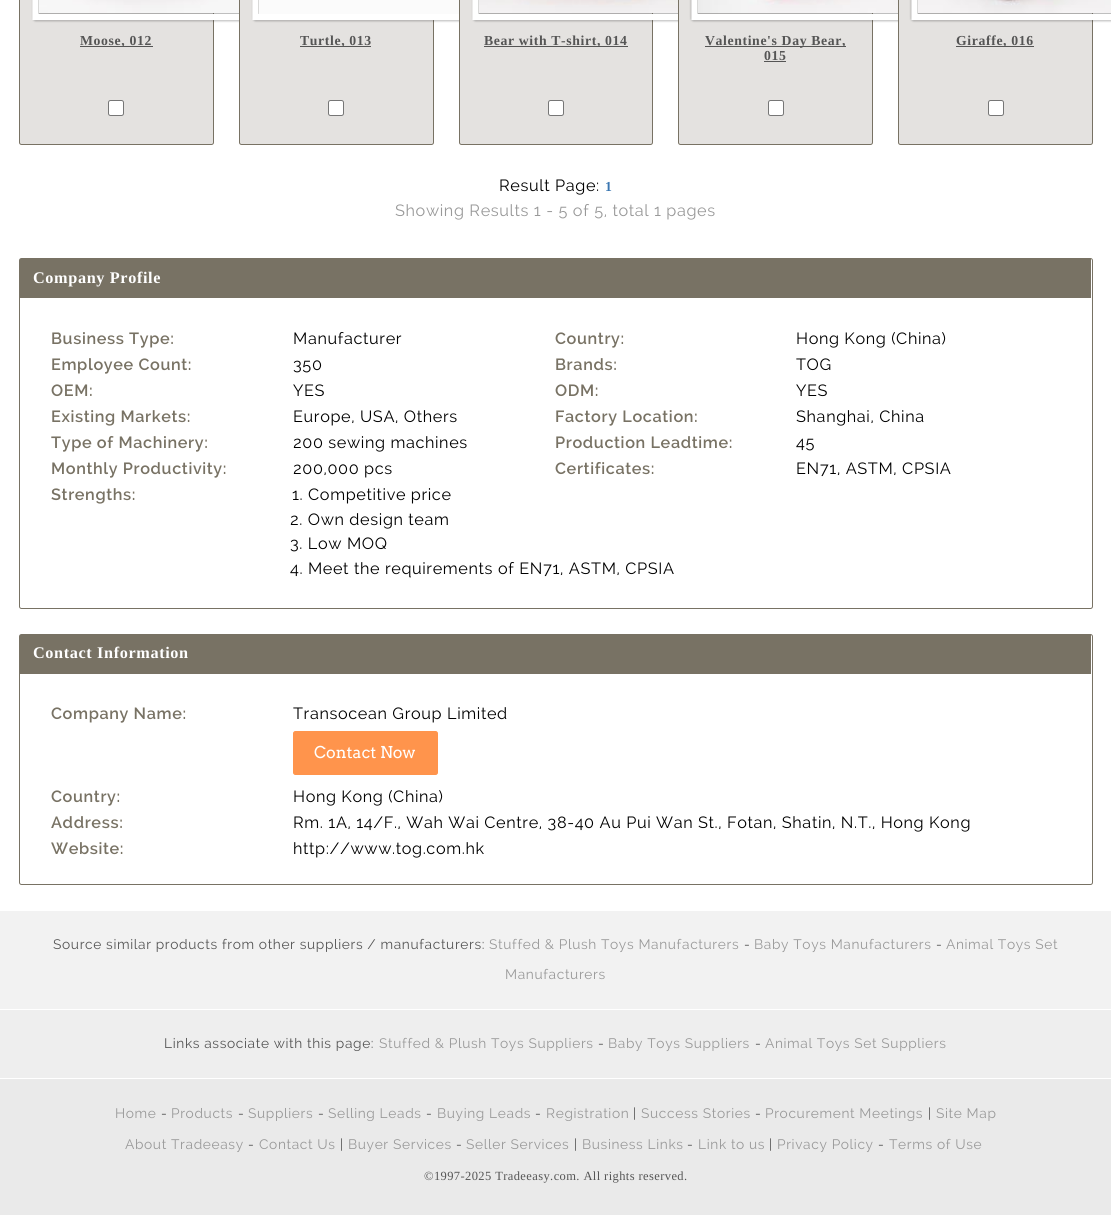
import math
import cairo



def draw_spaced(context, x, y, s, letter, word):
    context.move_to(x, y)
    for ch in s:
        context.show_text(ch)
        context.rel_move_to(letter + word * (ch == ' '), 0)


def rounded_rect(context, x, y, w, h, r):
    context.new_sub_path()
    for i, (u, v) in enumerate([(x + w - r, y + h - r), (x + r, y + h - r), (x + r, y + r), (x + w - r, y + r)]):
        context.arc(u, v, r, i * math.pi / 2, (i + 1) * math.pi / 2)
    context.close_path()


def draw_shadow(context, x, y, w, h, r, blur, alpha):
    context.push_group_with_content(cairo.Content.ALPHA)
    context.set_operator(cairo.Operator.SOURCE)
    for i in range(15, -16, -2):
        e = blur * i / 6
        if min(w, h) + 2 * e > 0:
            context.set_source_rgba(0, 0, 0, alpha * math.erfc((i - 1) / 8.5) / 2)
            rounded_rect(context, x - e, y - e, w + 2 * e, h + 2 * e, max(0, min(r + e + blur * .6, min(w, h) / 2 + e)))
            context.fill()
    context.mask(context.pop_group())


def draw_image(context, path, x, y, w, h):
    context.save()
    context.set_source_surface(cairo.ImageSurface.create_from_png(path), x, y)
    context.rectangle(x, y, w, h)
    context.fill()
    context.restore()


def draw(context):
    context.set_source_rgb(1, 1, 1)
    context.paint()
    context.set_source_rgb(228 / 255, 226 / 255, 224 / 255)
    rounded_rect(context, 19.5, -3.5, 194, 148, 2)
    context.fill_preserve()
    context.set_source_rgb(120 / 255, 114 / 255, 100 / 255)
    context.set_line_width(1)
    context.stroke()
    context.set_source_rgb(0, 0, 0)
    draw_shadow(context, 33, -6, 225, 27, 2.5, 1, 0.3)
    context.new_path()
    context.move_to(35.5, -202)
    context.line_to(254.5, -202)
    context.line_to(254.5, 17)
    context.line_to(35.5, 17)
    context.close_path()
    context.set_source_rgb(1, 1, 1)
    context.set_line_width(6.2)
    context.stroke()
    draw_image(context, "images/1.png", 39, 0, 200, 14)
    context.set_source_rgb(85 / 255, 85 / 255, 85 / 255)
    context.rectangle(80, 46, 73, 1)
    context.fill()
    context.set_source_rgb(1, 1, 1)
    rounded_rect(context, 108.5, 100.5, 15, 15, 2)
    context.fill_preserve()
    context.set_source_rgb(118 / 255, 118 / 255, 118 / 255)
    context.set_line_width(1)
    context.stroke()
    context.set_source_rgb(228 / 255, 226 / 255, 224 / 255)
    rounded_rect(context, 239.5, -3.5, 194, 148, 2)
    context.fill_preserve()
    context.set_source_rgb(120 / 255, 114 / 255, 100 / 255)
    context.stroke()
    context.set_source_rgb(0, 0, 0)
    draw_shadow(context, 253, -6, 225, 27, 2.5, 1, 0.3)
    context.new_path()
    context.move_to(255.5, -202)
    context.line_to(474.5, -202)
    context.line_to(474.5, 17)
    context.line_to(255.5, 17)
    context.close_path()
    context.set_source_rgb(1, 1, 1)
    context.set_line_width(6.2)
    context.stroke()
    context.set_source_rgb(251 / 255, 251 / 255, 251 / 255)
    context.rectangle(259, 0, 200, 14)
    context.fill()
    context.set_source_rgb(85 / 255, 85 / 255, 85 / 255)
    context.rectangle(300, 46, 71, 1)
    context.fill()
    context.set_source_rgb(1, 1, 1)
    rounded_rect(context, 328.5, 100.5, 15, 15, 2)
    context.fill_preserve()
    context.set_source_rgb(118 / 255, 118 / 255, 118 / 255)
    context.set_line_width(1)
    context.stroke()
    context.set_source_rgb(228 / 255, 226 / 255, 224 / 255)
    rounded_rect(context, 459.5, -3.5, 193, 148, 2)
    context.fill_preserve()
    context.set_source_rgb(120 / 255, 114 / 255, 100 / 255)
    context.stroke()
    context.set_source_rgb(0, 0, 0)
    draw_shadow(context, 473, -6, 225, 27, 2.5, 1, 0.3)
    context.new_path()
    context.move_to(475.5, -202)
    context.line_to(694.5, -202)
    context.line_to(694.5, 17)
    context.line_to(475.5, 17)
    context.close_path()
    context.set_source_rgb(1, 1, 1)
    context.set_line_width(6.2)
    context.stroke()
    draw_image(context, "images/2.png", 479, 0, 199, 14)
    context.set_source_rgb(85 / 255, 85 / 255, 85 / 255)
    context.rectangle(484, 46, 144, 1)
    context.fill()
    context.set_source_rgb(1, 1, 1)
    rounded_rect(context, 548.5, 100.5, 15, 15, 2)
    context.fill_preserve()
    context.set_source_rgb(118 / 255, 118 / 255, 118 / 255)
    context.set_line_width(1)
    context.stroke()
    context.set_source_rgb(228 / 255, 226 / 255, 224 / 255)
    rounded_rect(context, 678.5, -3.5, 194, 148, 2)
    context.fill_preserve()
    context.set_source_rgb(120 / 255, 114 / 255, 100 / 255)
    context.stroke()
    context.set_source_rgb(0, 0, 0)
    draw_shadow(context, 691, -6, 225, 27, 2.5, 1, 0.3)
    context.new_path()
    context.move_to(694.5, -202)
    context.line_to(913, -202)
    context.line_to(913, 17)
    context.line_to(694.5, 17)
    context.close_path()
    context.set_source_rgb(1, 1, 1)
    context.set_line_width(6.2)
    context.stroke()
    draw_image(context, "images/3.png", 698, 0, 200, 14)
    context.set_source_rgb(85 / 255, 85 / 255, 85 / 255)
    context.rectangle(705, 46, 141, 1)
    context.fill()
    context.rectangle(764, 61, 22, 1)
    context.fill()
    context.set_source_rgb(1, 1, 1)
    rounded_rect(context, 768.5, 100.5, 15, 15, 2)
    context.fill_preserve()
    context.set_source_rgb(118 / 255, 118 / 255, 118 / 255)
    context.set_line_width(1)
    context.stroke()
    context.set_source_rgb(228 / 255, 226 / 255, 224 / 255)
    rounded_rect(context, 898.5, -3.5, 194, 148, 2)
    context.fill_preserve()
    context.set_source_rgb(120 / 255, 114 / 255, 100 / 255)
    context.stroke()
    context.set_source_rgb(0, 0, 0)
    draw_shadow(context, 911, -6, 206, 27, 2.5, 1, 0.3)
    context.new_path()
    context.move_to(914.5, -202)
    context.line_to(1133, -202)
    context.line_to(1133, 17)
    context.line_to(914.5, 17)
    context.close_path()
    context.set_source_rgb(1, 1, 1)
    context.set_line_width(6.2)
    context.stroke()
    draw_image(context, "images/4.png", 918, 0, 193, 14)
    context.set_source_rgb(85 / 255, 85 / 255, 85 / 255)
    context.rectangle(956, 46, 78, 1)
    context.fill()
    context.set_source_rgb(1, 1, 1)
    rounded_rect(context, 988.5, 100.5, 15, 15, 2)
    context.fill_preserve()
    context.set_source_rgb(118 / 255, 118 / 255, 118 / 255)
    context.set_line_width(1)
    context.stroke()
    rounded_rect(context, 19.5, 258.5, 1073, 350, 2)
    context.set_source_rgb(120 / 255, 114 / 255, 100 / 255)
    context.stroke()
    context.rectangle(20, 259, 1071, 39)
    context.fill()
    rounded_rect(context, 19.5, 634.5, 1073, 250, 2)
    context.stroke()
    context.rectangle(20, 635, 1071, 39)
    context.fill()
    context.set_source_rgb(1, 148 / 255, 76 / 255)
    rounded_rect(context, 293.5, 731.5, 144, 43, 2)
    context.fill_preserve()
    context.stroke()
    context.set_source_rgb(242 / 255, 242 / 255, 242 / 255)
    context.rectangle(0, 911, 1111, 98)
    context.fill()
    context.set_source_rgb(238 / 255, 238 / 255, 238 / 255)
    context.rectangle(0, 1010, 1111, 68)
    context.fill()
    context.set_source_rgb(234 / 255, 234 / 255, 234 / 255)
    context.rectangle(0, 1079, 1111, 136)
    context.fill()
    context.select_font_face("Liberation Serif", cairo.FontSlant.NORMAL, cairo.FontWeight.BOLD)
    context.set_font_size(13.75)
    context.set_source_rgb(85 / 255, 85 / 255, 85 / 255)
    draw_spaced(context, 80, 45, "Moose, 012", 0.62, 0)
    draw_spaced(context, 300, 45, "Turtle, 013", 0.62, 0)
    draw_spaced(context, 484, 45, "Bear with T-shirt, 014", 0.62, 0)
    draw_spaced(context, 705, 45, "Valentine's Day Bear,", 0.62, 0)
    draw_spaced(context, 764, 60, "015", 0.62, 0)
    draw_spaced(context, 956, 45, "Giraffe, 016", 0.62, 0)
    context.select_font_face("Raleway")
    context.set_font_size(16.25)
    context.set_source_rgb(0, 0, 0)
    draw_spaced(context, 499, 191, "Result Page:", 0.62, 0)
    context.select_font_face("Liberation Serif", cairo.FontSlant.NORMAL, cairo.FontWeight.BOLD)
    context.set_font_size(13.75)
    context.set_source_rgb(58 / 255, 118 / 255, 177 / 255)
    draw_spaced(context, 605, 191, "1", 0.62, 0)
    context.select_font_face("Raleway")
    context.set_font_size(16.25)
    context.set_source_rgb(153 / 255, 153 / 255, 153 / 255)
    draw_spaced(context, 395, 216, "Showing Results 1 - 5 of 5, total 1 pages", 0.62, 0)
    context.select_font_face("Liberation Serif", cairo.FontSlant.NORMAL, cairo.FontWeight.BOLD)
    context.set_source_rgb(1, 1, 1)
    draw_spaced(context, 33, 283, "Company Profile", 0.62, 0)
    context.select_font_face("Raleway SemiBold")
    context.set_source_rgb(120 / 255, 114 / 255, 100 / 255)
    draw_spaced(context, 51, 344, "Business Type:", 0.62, 0)
    context.select_font_face("Raleway")
    context.set_source_rgb(0, 0, 0)
    draw_spaced(context, 293, 344, "Manufacturer", 0.62, 0)
    context.select_font_face("Raleway SemiBold")
    context.set_source_rgb(120 / 255, 114 / 255, 100 / 255)
    draw_spaced(context, 555, 344, "Country:", 0.62, 0)
    context.select_font_face("Raleway")
    context.set_source_rgb(0, 0, 0)
    draw_spaced(context, 796, 344, "Hong Kong (China)", 0.62, 0)
    context.select_font_face("Raleway SemiBold")
    context.set_source_rgb(120 / 255, 114 / 255, 100 / 255)
    draw_spaced(context, 51, 370, "Employee Count:", 0.62, 0)
    context.select_font_face("Raleway")
    context.set_source_rgb(0, 0, 0)
    draw_spaced(context, 293, 370, "350", 0.62, 0)
    context.select_font_face("Raleway SemiBold")
    context.set_source_rgb(120 / 255, 114 / 255, 100 / 255)
    draw_spaced(context, 555, 370, "Brands:", 0.62, 0)
    context.select_font_face("Raleway")
    context.set_source_rgb(0, 0, 0)
    draw_spaced(context, 796, 370, "TOG", 0.62, 0)
    context.select_font_face("Raleway SemiBold")
    context.set_source_rgb(120 / 255, 114 / 255, 100 / 255)
    draw_spaced(context, 51, 396, "OEM:", 0.62, 0)
    context.select_font_face("Raleway")
    context.set_source_rgb(0, 0, 0)
    draw_spaced(context, 293, 396, "YES", 0.62, 0)
    context.select_font_face("Raleway SemiBold")
    context.set_source_rgb(120 / 255, 114 / 255, 100 / 255)
    draw_spaced(context, 555, 396, "ODM:", 0.62, 0)
    context.select_font_face("Raleway")
    context.set_source_rgb(0, 0, 0)
    draw_spaced(context, 796, 396, "YES", 0.62, 0)
    context.select_font_face("Raleway SemiBold")
    context.set_source_rgb(120 / 255, 114 / 255, 100 / 255)
    draw_spaced(context, 51, 422, "Existing Markets:", 0.62, 0)
    context.select_font_face("Raleway")
    context.set_source_rgb(0, 0, 0)
    draw_spaced(context, 293, 422, "Europe, USA, Others", 0.62, 0)
    context.select_font_face("Raleway SemiBold")
    context.set_source_rgb(120 / 255, 114 / 255, 100 / 255)
    draw_spaced(context, 555, 422, "Factory Location:", 0.62, 0)
    context.select_font_face("Raleway")
    context.set_source_rgb(0, 0, 0)
    draw_spaced(context, 796, 422, "Shanghai, China", 0.62, 0)
    context.select_font_face("Raleway SemiBold")
    context.set_source_rgb(120 / 255, 114 / 255, 100 / 255)
    draw_spaced(context, 51, 448, "Type of Machinery:", 0.62, 0)
    context.select_font_face("Raleway")
    context.set_source_rgb(0, 0, 0)
    draw_spaced(context, 293, 448, "200 sewing machines", 0.62, 0)
    context.select_font_face("Raleway SemiBold")
    context.set_source_rgb(120 / 255, 114 / 255, 100 / 255)
    draw_spaced(context, 555, 448, "Production Leadtime:", 0.62, 0)
    context.select_font_face("Raleway")
    context.set_source_rgb(0, 0, 0)
    draw_spaced(context, 796, 448, "45", 0.62, 0)
    context.select_font_face("Raleway SemiBold")
    context.set_source_rgb(120 / 255, 114 / 255, 100 / 255)
    draw_spaced(context, 51, 474, "Monthly Productivity:", 0.62, 0)
    context.select_font_face("Raleway")
    context.set_source_rgb(0, 0, 0)
    draw_spaced(context, 293, 474, "200,000 pcs", 0.62, 0)
    context.select_font_face("Raleway SemiBold")
    context.set_source_rgb(120 / 255, 114 / 255, 100 / 255)
    draw_spaced(context, 555, 474, "Certificates:", 0.62, 0)
    context.select_font_face("Raleway")
    context.set_source_rgb(0, 0, 0)
    draw_spaced(context, 796, 474, "EN71, ASTM, CPSIA", 0.62, 0)
    context.select_font_face("Raleway SemiBold")
    context.set_source_rgb(120 / 255, 114 / 255, 100 / 255)
    draw_spaced(context, 51, 500, "Strengths:", 0.62, 0)
    context.select_font_face("Raleway")
    context.set_source_rgb(0, 0, 0)
    draw_spaced(context, 292, 500, "1. Competitive price", 0.62, 0)
    draw_spaced(context, 290, 525, "2. Own design team", 0.62, 0)
    draw_spaced(context, 290, 549, "3. Low MOQ", 0.62, 0)
    draw_spaced(context, 290, 574, "4. Meet the requirements of EN71, ASTM, CPSIA", 0.62, 0)
    context.select_font_face("Liberation Serif", cairo.FontSlant.NORMAL, cairo.FontWeight.BOLD)
    context.set_source_rgb(1, 1, 1)
    draw_spaced(context, 33, 658, "Contact Information", 0.62, 0)
    context.select_font_face("Raleway SemiBold")
    context.set_source_rgb(120 / 255, 114 / 255, 100 / 255)
    draw_spaced(context, 51, 719, "Company Name:", 0.62, 0)
    context.select_font_face("Raleway")
    context.set_source_rgb(0, 0, 0)
    draw_spaced(context, 293, 719, "Transocean Group Limited", 0.62, 0)
    context.select_font_face("Arvo")
    context.set_source_rgb(1, 1, 1)
    context.move_to(314, 758)
    context.show_text("Contact Now")
    context.select_font_face("Raleway SemiBold")
    context.set_source_rgb(120 / 255, 114 / 255, 100 / 255)
    draw_spaced(context, 51, 802, "Country:", 0.62, 0)
    context.select_font_face("Raleway")
    context.set_source_rgb(0, 0, 0)
    draw_spaced(context, 293, 802, "Hong Kong (China)", 0.62, 0)
    context.select_font_face("Raleway SemiBold")
    context.set_source_rgb(120 / 255, 114 / 255, 100 / 255)
    draw_spaced(context, 51, 828, "Address:", 0.62, 0)
    context.select_font_face("Raleway")
    context.set_source_rgb(0, 0, 0)
    draw_spaced(context, 293, 828, "Rm. 1A, 14/F., Wah Wai Centre, 38-40 Au Pui Wan St., Fotan, Shatin, N.T., Hong Kong", 0.62, 0)
    context.select_font_face("Raleway SemiBold")
    context.set_source_rgb(120 / 255, 114 / 255, 100 / 255)
    draw_spaced(context, 51, 854, "Website:", 0.62, 0)
    context.select_font_face("Raleway")
    context.set_source_rgb(0, 0, 0)
    draw_spaced(context, 293, 854, "http://www.tog.com.hk", 0.62, 0)
    context.set_font_size(13.75)
    context.set_source_rgb(85 / 255, 85 / 255, 85 / 255)
    draw_spaced(context, 53, 949, "Source similar products from other suppliers / manufacturers:", 0.62, 0)
    context.set_source_rgb(153 / 255, 153 / 255, 153 / 255)
    draw_spaced(context, 489, 949, "Stuffed & Plush Toys Manufacturers", 0.62, 0)
    context.set_source_rgb(85 / 255, 85 / 255, 85 / 255)
    draw_spaced(context, 744, 949, "-", 0.62, 0)
    context.set_source_rgb(153 / 255, 153 / 255, 153 / 255)
    draw_spaced(context, 754, 949, "Baby Toys Manufacturers", 0.62, 0)
    context.set_source_rgb(85 / 255, 85 / 255, 85 / 255)
    draw_spaced(context, 936, 949, "-", 0.62, 0)
    context.set_source_rgb(153 / 255, 153 / 255, 153 / 255)
    draw_spaced(context, 946, 949, "Animal Toys Set", 0.62, 0)
    draw_spaced(context, 505, 979, "Manufacturers", 0.62, 0)
    context.set_source_rgb(85 / 255, 85 / 255, 85 / 255)
    draw_spaced(context, 164, 1048, "Links associate with this page:", 0.62, 0)
    context.set_source_rgb(153 / 255, 153 / 255, 153 / 255)
    draw_spaced(context, 379, 1048, "Stuffed & Plush Toys Suppliers", 0.62, 0)
    context.set_source_rgb(85 / 255, 85 / 255, 85 / 255)
    draw_spaced(context, 598, 1048, "-", 0.62, 0)
    context.set_source_rgb(153 / 255, 153 / 255, 153 / 255)
    draw_spaced(context, 608, 1048, "Baby Toys Suppliers", 0.62, 0)
    context.set_source_rgb(85 / 255, 85 / 255, 85 / 255)
    draw_spaced(context, 755, 1048, "-", 0.62, 0)
    context.set_source_rgb(153 / 255, 153 / 255, 153 / 255)
    draw_spaced(context, 765, 1048, "Animal Toys Set Suppliers", 0.62, 0)
    draw_spaced(context, 115, 1118, "Home", 0.62, 0)
    context.set_source_rgb(85 / 255, 85 / 255, 85 / 255)
    draw_spaced(context, 161, 1118, "-", 0.62, 0)
    context.set_source_rgb(153 / 255, 153 / 255, 153 / 255)
    draw_spaced(context, 171, 1118, "Products", 0.62, 0)
    context.set_source_rgb(85 / 255, 85 / 255, 85 / 255)
    draw_spaced(context, 238, 1118, "-", 0.62, 0)
    context.set_source_rgb(153 / 255, 153 / 255, 153 / 255)
    draw_spaced(context, 248, 1118, "Suppliers", 0.62, 0)
    context.set_source_rgb(85 / 255, 85 / 255, 85 / 255)
    draw_spaced(context, 318, 1118, "-", 0.62, 0)
    context.set_source_rgb(153 / 255, 153 / 255, 153 / 255)
    draw_spaced(context, 328, 1118, "Selling Leads", 0.62, 0)
    context.set_source_rgb(85 / 255, 85 / 255, 85 / 255)
    draw_spaced(context, 426, 1118, "-", 0.62, 0)
    context.set_source_rgb(153 / 255, 153 / 255, 153 / 255)
    draw_spaced(context, 437, 1118, "Buying Leads", 0.62, 0)
    context.set_source_rgb(85 / 255, 85 / 255, 85 / 255)
    draw_spaced(context, 535, 1118, "-", 0.62, 0)
    context.set_source_rgb(153 / 255, 153 / 255, 153 / 255)
    draw_spaced(context, 546, 1118, "Registration", 0.62, 0)
    context.set_source_rgb(85 / 255, 85 / 255, 85 / 255)
    draw_spaced(context, 633, 1118, "|", 0.62, 0)
    context.set_source_rgb(153 / 255, 153 / 255, 153 / 255)
    draw_spaced(context, 641, 1118, "Success Stories", 0.62, 0)
    context.set_source_rgb(85 / 255, 85 / 255, 85 / 255)
    draw_spaced(context, 755, 1118, "-", 0.62, 0)
    context.set_source_rgb(153 / 255, 153 / 255, 153 / 255)
    draw_spaced(context, 765, 1118, "Procurement Meetings", 0.62, 0)
    context.set_source_rgb(85 / 255, 85 / 255, 85 / 255)
    draw_spaced(context, 928, 1118, "|", 0.62, 0)
    context.set_source_rgb(153 / 255, 153 / 255, 153 / 255)
    draw_spaced(context, 936, 1118, "Site Map", 0.62, 0)
    draw_spaced(context, 125, 1149, "About Tradeeasy", 0.62, 0)
    context.set_source_rgb(85 / 255, 85 / 255, 85 / 255)
    draw_spaced(context, 248, 1149, "-", 0.62, 0)
    context.set_source_rgb(153 / 255, 153 / 255, 153 / 255)
    draw_spaced(context, 259, 1149, "Contact Us", 0.62, 0)
    context.set_source_rgb(85 / 255, 85 / 255, 85 / 255)
    draw_spaced(context, 340, 1149, "|", 0.62, 0)
    context.set_source_rgb(153 / 255, 153 / 255, 153 / 255)
    draw_spaced(context, 348, 1149, "Buyer Services", 0.62, 0)
    context.set_source_rgb(85 / 255, 85 / 255, 85 / 255)
    draw_spaced(context, 456, 1149, "-", 0.62, 0)
    context.set_source_rgb(153 / 255, 153 / 255, 153 / 255)
    draw_spaced(context, 466, 1149, "Seller Services", 0.62, 0)
    context.set_source_rgb(85 / 255, 85 / 255, 85 / 255)
    draw_spaced(context, 574, 1149, "|", 0.62, 0)
    context.set_source_rgb(153 / 255, 153 / 255, 153 / 255)
    draw_spaced(context, 582, 1149, "Business Links", 0.62, 0)
    context.set_source_rgb(85 / 255, 85 / 255, 85 / 255)
    draw_spaced(context, 687, 1149, "-", 0.62, 0)
    context.set_source_rgb(153 / 255, 153 / 255, 153 / 255)
    draw_spaced(context, 698, 1149, "Link to us", 0.62, 0)
    context.set_source_rgb(85 / 255, 85 / 255, 85 / 255)
    draw_spaced(context, 769, 1149, "|", 0.62, 0)
    context.set_source_rgb(153 / 255, 153 / 255, 153 / 255)
    draw_spaced(context, 777, 1149, "Privacy Policy", 0.62, 0)
    context.set_source_rgb(85 / 255, 85 / 255, 85 / 255)
    draw_spaced(context, 878, 1149, "-", 0.62, 0)
    context.set_source_rgb(153 / 255, 153 / 255, 153 / 255)
    draw_spaced(context, 889, 1149, "Terms of Use", 0.62, 0)
    context.select_font_face("Liberation Serif")
    context.set_font_size(12.5)
    context.set_source_rgb(85 / 255, 85 / 255, 85 / 255)
    draw_spaced(context, 424, 1180, "©1997-2025 Tradeeasy.com. All rights reserved.", 0.4, 0)


surface = cairo.ImageSurface(cairo.Format.RGB24, 1111, 1215)
context = cairo.Context(surface)
options = cairo.FontOptions()
options.set_hint_metrics(cairo.HintMetrics.OFF)
options.set_hint_style(cairo.HintStyle.NONE)
context.set_font_options(options)
context.set_miter_limit(4)
draw(context)
surface.write_to_png("out.png")
